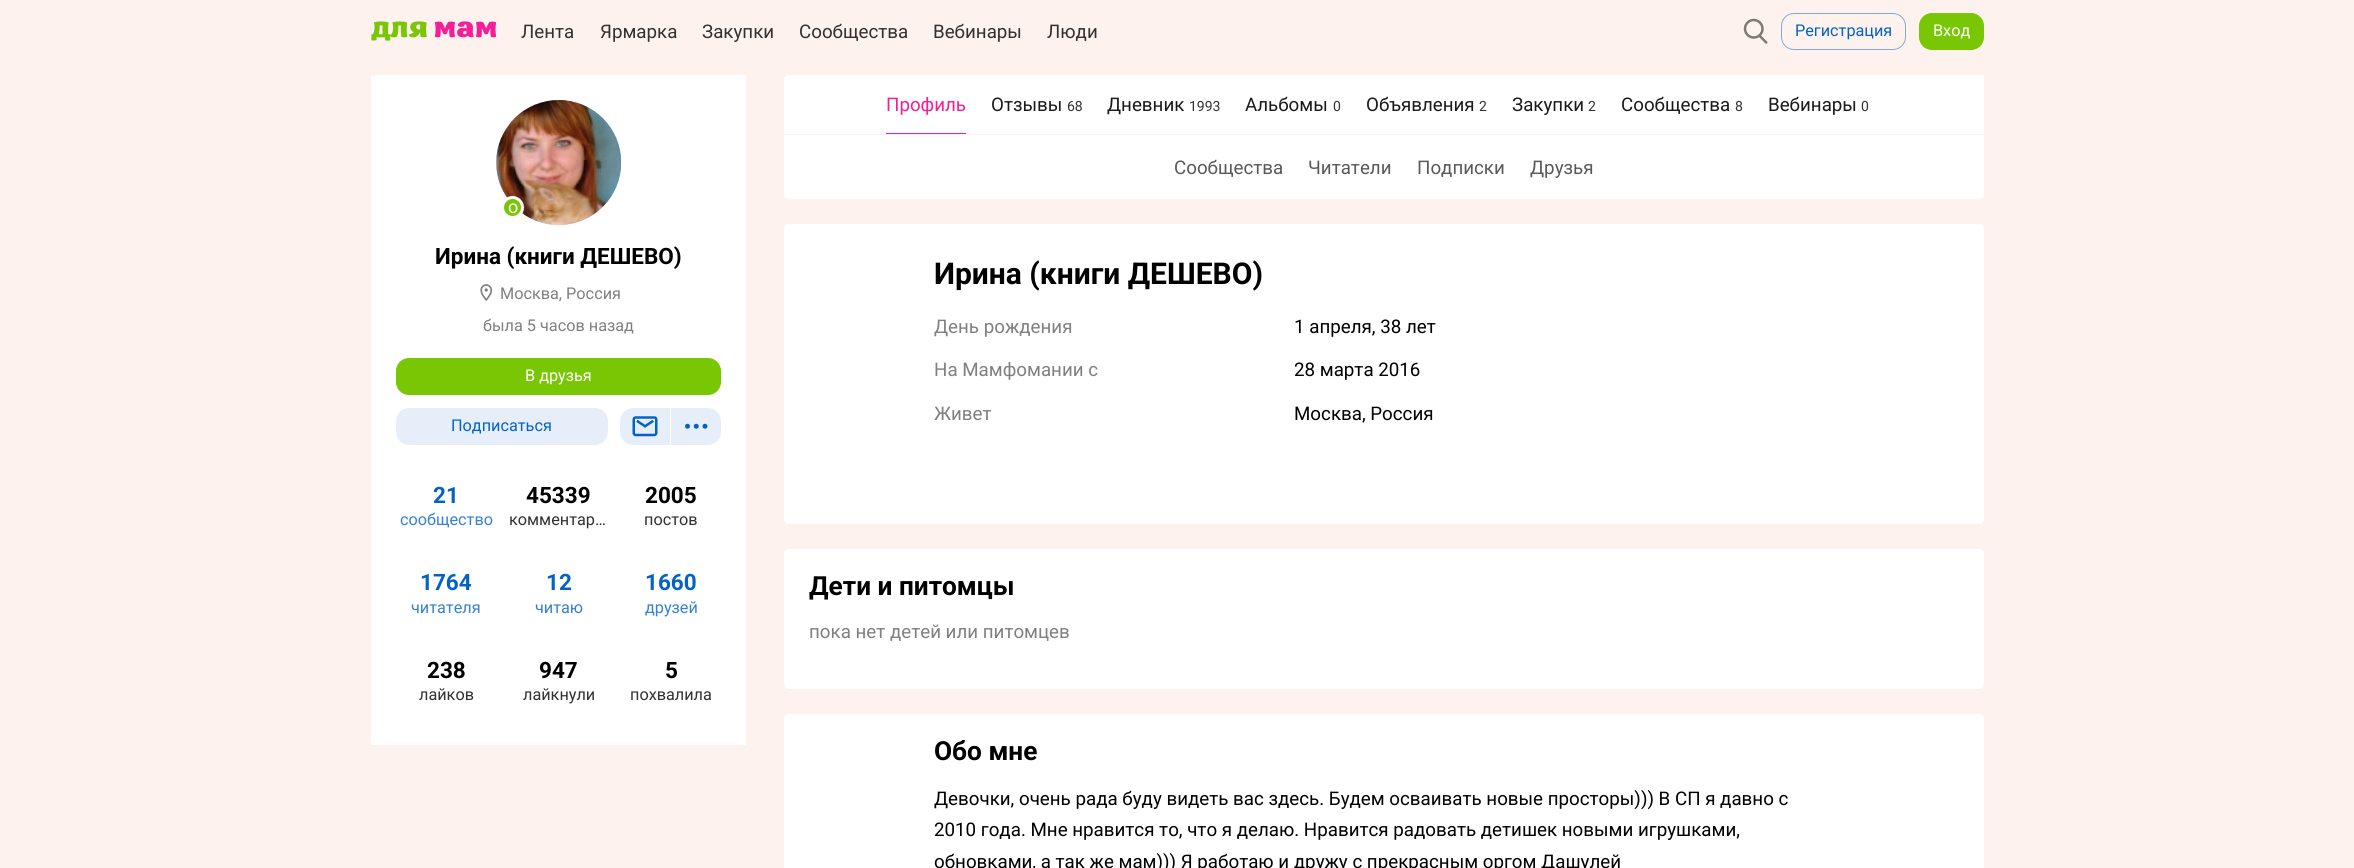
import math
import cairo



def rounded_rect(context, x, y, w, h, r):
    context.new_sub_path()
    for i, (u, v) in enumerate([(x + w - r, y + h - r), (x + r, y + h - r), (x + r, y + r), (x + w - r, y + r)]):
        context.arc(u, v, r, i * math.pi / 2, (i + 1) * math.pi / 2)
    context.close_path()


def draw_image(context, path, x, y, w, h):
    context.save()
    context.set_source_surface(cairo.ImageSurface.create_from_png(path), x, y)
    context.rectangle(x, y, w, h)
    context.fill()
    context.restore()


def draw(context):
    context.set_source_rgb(254 / 255, 242 / 255, 238 / 255)
    context.paint()
    draw_image(context, "images/1.png", 371, 21, 125, 20)
    draw_image(context, "images/2.png", 1743, 18, 25, 26)
    rounded_rect(context, 1781.5, 13.5, 124, 36, 12.5)
    context.set_source_rgb(129 / 255, 170 / 255, 218 / 255)
    context.set_line_width(1)
    context.stroke()
    context.set_source_rgb(120 / 255, 198 / 255, 4 / 255)
    rounded_rect(context, 1919.5, 13.5, 64, 36, 12.5)
    context.fill_preserve()
    context.stroke()
    context.set_source_rgb(1, 1, 1)
    context.rectangle(371, 75, 375, 670)
    context.fill()
    context.set_source_rgb(218 / 255, 193 / 255, 219 / 255)
    context.arc(558.5, 162.5, 62.5, 0, 2 * math.pi)
    context.fill()
    draw_image(context, "images/3.png", 496, 100, 126, 125)
    context.set_source_rgb(120 / 255, 198 / 255, 4 / 255)
    context.arc(512.5, 207.5, 10, 0, 2 * math.pi)
    context.fill_preserve()
    context.set_source_rgb(1, 1, 1)
    context.set_line_width(3)
    context.stroke()
    draw_image(context, "images/4.png", 480, 284, 12, 17)
    context.set_source_rgb(120 / 255, 198 / 255, 4 / 255)
    rounded_rect(context, 396.5, 358.5, 324, 36, 12.5)
    context.fill_preserve()
    context.set_line_width(1)
    context.stroke()
    context.set_source_rgb(230 / 255, 239 / 255, 249 / 255)
    rounded_rect(context, 396, 408, 212, 37, 13)
    context.fill()
    context.new_path()
    context.move_to(633, 408)
    context.line_to(670, 408)
    context.line_to(670, 445)
    context.line_to(633, 445)
    context.curve_to(626, 445, 620, 439, 620, 432)
    context.line_to(620, 421)
    context.curve_to(620, 414, 626, 408, 633, 408)
    context.close_path()
    context.fill()
    draw_image(context, "images/5.png", 632, 416, 26, 21)
    context.new_path()
    context.move_to(671, 408)
    context.line_to(708, 408)
    context.curve_to(715, 408, 721, 414, 721, 421)
    context.line_to(721, 432)
    context.curve_to(721, 439, 715, 445, 708, 445)
    context.line_to(671, 445)
    context.close_path()
    context.fill()
    draw_image(context, "images/6.png", 685, 423, 23, 6)
    context.set_source_rgb(1, 1, 1)
    rounded_rect(context, 784, 75, 1200, 124, 5)
    context.fill()
    gradient = cairo.LinearGradient(1946, 104, 1984, 104)
    gradient.add_color_stop_rgba(0, 1, 1, 1, 0)
    gradient.add_color_stop_rgba(1, 1, 1, 1, 1)
    context.set_source(gradient)
    context.rectangle(1980, 75, 4, 4)
    context.fill()
    context.set_source_rgb(246 / 255, 30 / 255, 150 / 255)
    context.rectangle(886, 133, 80, 1)
    context.fill()
    context.set_source_rgb(242 / 255, 242 / 255, 242 / 255)
    context.rectangle(784, 134, 1200, 1)
    context.fill()
    context.set_source_rgb(1, 1, 1)
    rounded_rect(context, 784, 224, 1200, 300, 5)
    context.fill()
    rounded_rect(context, 784, 549, 1200, 140, 5)
    context.fill()
    rounded_rect(context, 784, 714, 1200, 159, 5)
    context.fill()
    context.select_font_face("Roboto")
    context.set_font_size(18.75)
    context.set_source_rgb(51 / 255, 48 / 255, 48 / 255)
    context.move_to(521, 38)
    context.show_text("Лента")
    context.move_to(600, 38)
    context.show_text("Ярмарка")
    context.move_to(702, 38)
    context.show_text("Закупки")
    context.move_to(799, 38)
    context.show_text("Сообщества")
    context.move_to(933, 38)
    context.show_text("Вебинары")
    context.move_to(1047, 38)
    context.show_text("Люди")
    context.set_font_size(16.25)
    context.set_source_rgb(4 / 255, 98 / 255, 198 / 255)
    context.move_to(1795, 36)
    context.show_text("Регистрация")
    context.set_source_rgb(1, 1, 1)
    context.move_to(1933, 36)
    context.show_text("Вход")
    context.set_font_size(18)
    context.move_to(508, 213)
    context.show_text("o")
    context.select_font_face("Roboto", cairo.FontSlant.NORMAL, cairo.FontWeight.BOLD)
    context.set_font_size(22.5)
    context.set_source_rgb(0, 0, 0)
    context.move_to(435, 264)
    context.show_text("Ирина (книги ДЕШЕВО)")
    context.select_font_face("Roboto")
    context.set_font_size(16.25)
    context.set_source_rgb(128 / 255, 128 / 255, 128 / 255)
    context.move_to(500, 299)
    context.show_text("Москва, Россия")
    context.move_to(483, 331)
    context.show_text("была 5 часов назад")
    context.set_source_rgb(1, 1, 1)
    context.move_to(525, 381)
    context.show_text("В друзья")
    context.set_source_rgb(4 / 255, 98 / 255, 198 / 255)
    context.move_to(451, 431)
    context.show_text("Подписаться")
    context.select_font_face("Roboto", cairo.FontSlant.NORMAL, cairo.FontWeight.BOLD)
    context.set_font_size(22.5)
    context.move_to(433, 503)
    context.show_text("21")
    context.select_font_face("Roboto")
    context.set_font_size(16.25)
    context.set_source_rgb(54 / 255, 129 / 255, 209 / 255)
    context.move_to(400, 525)
    context.show_text("сообщество")
    context.select_font_face("Roboto", cairo.FontSlant.NORMAL, cairo.FontWeight.BOLD)
    context.set_font_size(22.5)
    context.set_source_rgb(0, 0, 0)
    context.move_to(526, 503)
    context.show_text("45339")
    context.select_font_face("Roboto")
    context.set_font_size(16.25)
    context.set_source_rgb(51 / 255, 48 / 255, 48 / 255)
    context.move_to(509, 525)
    context.show_text("комментар…")
    context.select_font_face("Roboto", cairo.FontSlant.NORMAL, cairo.FontWeight.BOLD)
    context.set_font_size(22.5)
    context.set_source_rgb(0, 0, 0)
    context.move_to(645, 503)
    context.show_text("2005")
    context.select_font_face("Roboto")
    context.set_font_size(16.25)
    context.set_source_rgb(51 / 255, 48 / 255, 48 / 255)
    context.move_to(644, 525)
    context.show_text("постов")
    context.select_font_face("Roboto", cairo.FontSlant.NORMAL, cairo.FontWeight.BOLD)
    context.set_font_size(22.5)
    context.set_source_rgb(4 / 255, 98 / 255, 198 / 255)
    context.move_to(420, 590)
    context.show_text("1764")
    context.select_font_face("Roboto")
    context.set_font_size(16.25)
    context.set_source_rgb(54 / 255, 129 / 255, 209 / 255)
    context.move_to(411, 613)
    context.show_text("читателя")
    context.select_font_face("Roboto", cairo.FontSlant.NORMAL, cairo.FontWeight.BOLD)
    context.set_font_size(22.5)
    context.set_source_rgb(4 / 255, 98 / 255, 198 / 255)
    context.move_to(546, 590)
    context.show_text("12")
    context.select_font_face("Roboto")
    context.set_font_size(16.25)
    context.set_source_rgb(54 / 255, 129 / 255, 209 / 255)
    context.move_to(535, 613)
    context.show_text("читаю")
    context.select_font_face("Roboto", cairo.FontSlant.NORMAL, cairo.FontWeight.BOLD)
    context.set_font_size(22.5)
    context.set_source_rgb(4 / 255, 98 / 255, 198 / 255)
    context.move_to(645, 590)
    context.show_text("1660")
    context.select_font_face("Roboto")
    context.set_font_size(16.25)
    context.set_source_rgb(54 / 255, 129 / 255, 209 / 255)
    context.move_to(645, 613)
    context.show_text("друзей")
    context.select_font_face("Roboto", cairo.FontSlant.NORMAL, cairo.FontWeight.BOLD)
    context.set_font_size(22.5)
    context.set_source_rgb(0, 0, 0)
    context.move_to(427, 678)
    context.show_text("238")
    context.select_font_face("Roboto")
    context.set_font_size(16.25)
    context.set_source_rgb(51 / 255, 48 / 255, 48 / 255)
    context.move_to(419, 700)
    context.show_text("лайков")
    context.select_font_face("Roboto", cairo.FontSlant.NORMAL, cairo.FontWeight.BOLD)
    context.set_font_size(22.5)
    context.set_source_rgb(0, 0, 0)
    context.move_to(539, 678)
    context.show_text("947")
    context.select_font_face("Roboto")
    context.set_font_size(16.25)
    context.set_source_rgb(51 / 255, 48 / 255, 48 / 255)
    context.move_to(523, 700)
    context.show_text("лайкнули")
    context.select_font_face("Roboto", cairo.FontSlant.NORMAL, cairo.FontWeight.BOLD)
    context.set_font_size(22.5)
    context.set_source_rgb(0, 0, 0)
    context.move_to(665, 678)
    context.show_text("5")
    context.select_font_face("Roboto")
    context.set_font_size(16.25)
    context.set_source_rgb(51 / 255, 48 / 255, 48 / 255)
    context.move_to(630, 700)
    context.show_text("похвалила")
    context.set_font_size(18.75)
    context.set_source_rgb(246 / 255, 30 / 255, 150 / 255)
    context.move_to(886, 111)
    context.show_text("Профиль")
    context.set_source_rgb(26 / 255, 26 / 255, 26 / 255)
    context.move_to(991, 111)
    context.show_text("Отзывы")
    context.set_font_size(14)
    context.set_source_rgb(51 / 255, 48 / 255, 48 / 255)
    context.move_to(1067, 111)
    context.show_text("68")
    context.set_font_size(18.75)
    context.set_source_rgb(26 / 255, 26 / 255, 26 / 255)
    context.move_to(1107, 111)
    context.show_text("Дневник")
    context.set_font_size(14)
    context.set_source_rgb(51 / 255, 48 / 255, 48 / 255)
    context.move_to(1189, 111)
    context.show_text("1993")
    context.set_font_size(18.75)
    context.set_source_rgb(26 / 255, 26 / 255, 26 / 255)
    context.move_to(1245, 111)
    context.show_text("Альбомы")
    context.set_font_size(14)
    context.set_source_rgb(51 / 255, 48 / 255, 48 / 255)
    context.move_to(1333, 111)
    context.show_text("0")
    context.set_font_size(18.75)
    context.set_source_rgb(26 / 255, 26 / 255, 26 / 255)
    context.move_to(1366, 111)
    context.show_text("Объявления")
    context.set_font_size(14)
    context.set_source_rgb(51 / 255, 48 / 255, 48 / 255)
    context.move_to(1479, 111)
    context.show_text("2")
    context.set_font_size(18.75)
    context.set_source_rgb(26 / 255, 26 / 255, 26 / 255)
    context.move_to(1512, 111)
    context.show_text("Закупки")
    context.set_font_size(14)
    context.set_source_rgb(51 / 255, 48 / 255, 48 / 255)
    context.move_to(1588, 111)
    context.show_text("2")
    context.set_font_size(18.75)
    context.set_source_rgb(26 / 255, 26 / 255, 26 / 255)
    context.move_to(1621, 111)
    context.show_text("Сообщества")
    context.set_font_size(14)
    context.set_source_rgb(51 / 255, 48 / 255, 48 / 255)
    context.move_to(1735, 111)
    context.show_text("8")
    context.set_font_size(18.75)
    context.set_source_rgb(26 / 255, 26 / 255, 26 / 255)
    context.move_to(1768, 111)
    context.show_text("Вебинары")
    context.set_font_size(14)
    context.set_source_rgb(51 / 255, 48 / 255, 48 / 255)
    context.move_to(1861, 111)
    context.show_text("0")
    context.set_font_size(18.75)
    context.set_source_rgb(89 / 255, 89 / 255, 89 / 255)
    context.move_to(1174, 174)
    context.show_text("Сообщества")
    context.move_to(1308, 174)
    context.show_text("Читатели")
    context.move_to(1417, 174)
    context.show_text("Подписки")
    context.move_to(1530, 174)
    context.show_text("Друзья")
    context.select_font_face("Roboto", cairo.FontSlant.NORMAL, cairo.FontWeight.BOLD)
    context.set_font_size(30)
    context.set_source_rgb(0, 0, 0)
    context.move_to(934, 284)
    context.show_text("Ирина (книги ДЕШЕВО)")
    context.select_font_face("Roboto")
    context.set_font_size(18.75)
    context.set_source_rgb(128 / 255, 128 / 255, 128 / 255)
    context.move_to(934, 333)
    context.show_text("День рождения")
    context.set_source_rgb(0, 0, 0)
    context.move_to(1294, 333)
    context.show_text("1 апреля, 38 лет")
    context.set_source_rgb(128 / 255, 128 / 255, 128 / 255)
    context.move_to(934, 376)
    context.show_text("На Мамфомании с")
    context.set_source_rgb(0, 0, 0)
    context.move_to(1294, 376)
    context.show_text("28 марта 2016")
    context.set_source_rgb(128 / 255, 128 / 255, 128 / 255)
    context.move_to(934, 420)
    context.show_text("Живет")
    context.set_source_rgb(0, 0, 0)
    context.move_to(1294, 420)
    context.show_text("Москва, Россия")
    context.select_font_face("Roboto", cairo.FontSlant.NORMAL, cairo.FontWeight.BOLD)
    context.set_font_size(26.25)
    context.move_to(809, 595)
    context.show_text("Дети и питомцы")
    context.select_font_face("Roboto")
    context.set_font_size(18.75)
    context.set_source_rgb(128 / 255, 128 / 255, 128 / 255)
    context.move_to(809, 638)
    context.show_text("пока нет детей или питомцев")
    context.select_font_face("Roboto", cairo.FontSlant.NORMAL, cairo.FontWeight.BOLD)
    context.set_font_size(26.25)
    context.set_source_rgb(0, 0, 0)
    context.move_to(934, 760)
    context.show_text("Обо мне")
    context.select_font_face("Roboto")
    context.set_font_size(18.75)
    context.move_to(934, 805)
    context.show_text("Девочки, очень рада буду видеть вас здесь. Будем осваивать новые просторы))) В СП я давно с")
    context.move_to(934, 836)
    context.show_text("2010 года. Мне нравится то, что я делаю. Нравится радовать детишек новыми игрушками,")
    context.move_to(934, 868)
    context.show_text("обновками, а так же мам))) Я работаю и дружу с прекрасным оргом Дашулей")


surface = cairo.ImageSurface(cairo.Format.RGB24, 2354, 868)
context = cairo.Context(surface)
options = cairo.FontOptions()
options.set_hint_metrics(cairo.HintMetrics.OFF)
options.set_hint_style(cairo.HintStyle.NONE)
context.set_font_options(options)
context.set_miter_limit(4)
draw(context)
surface.write_to_png("out.png")
